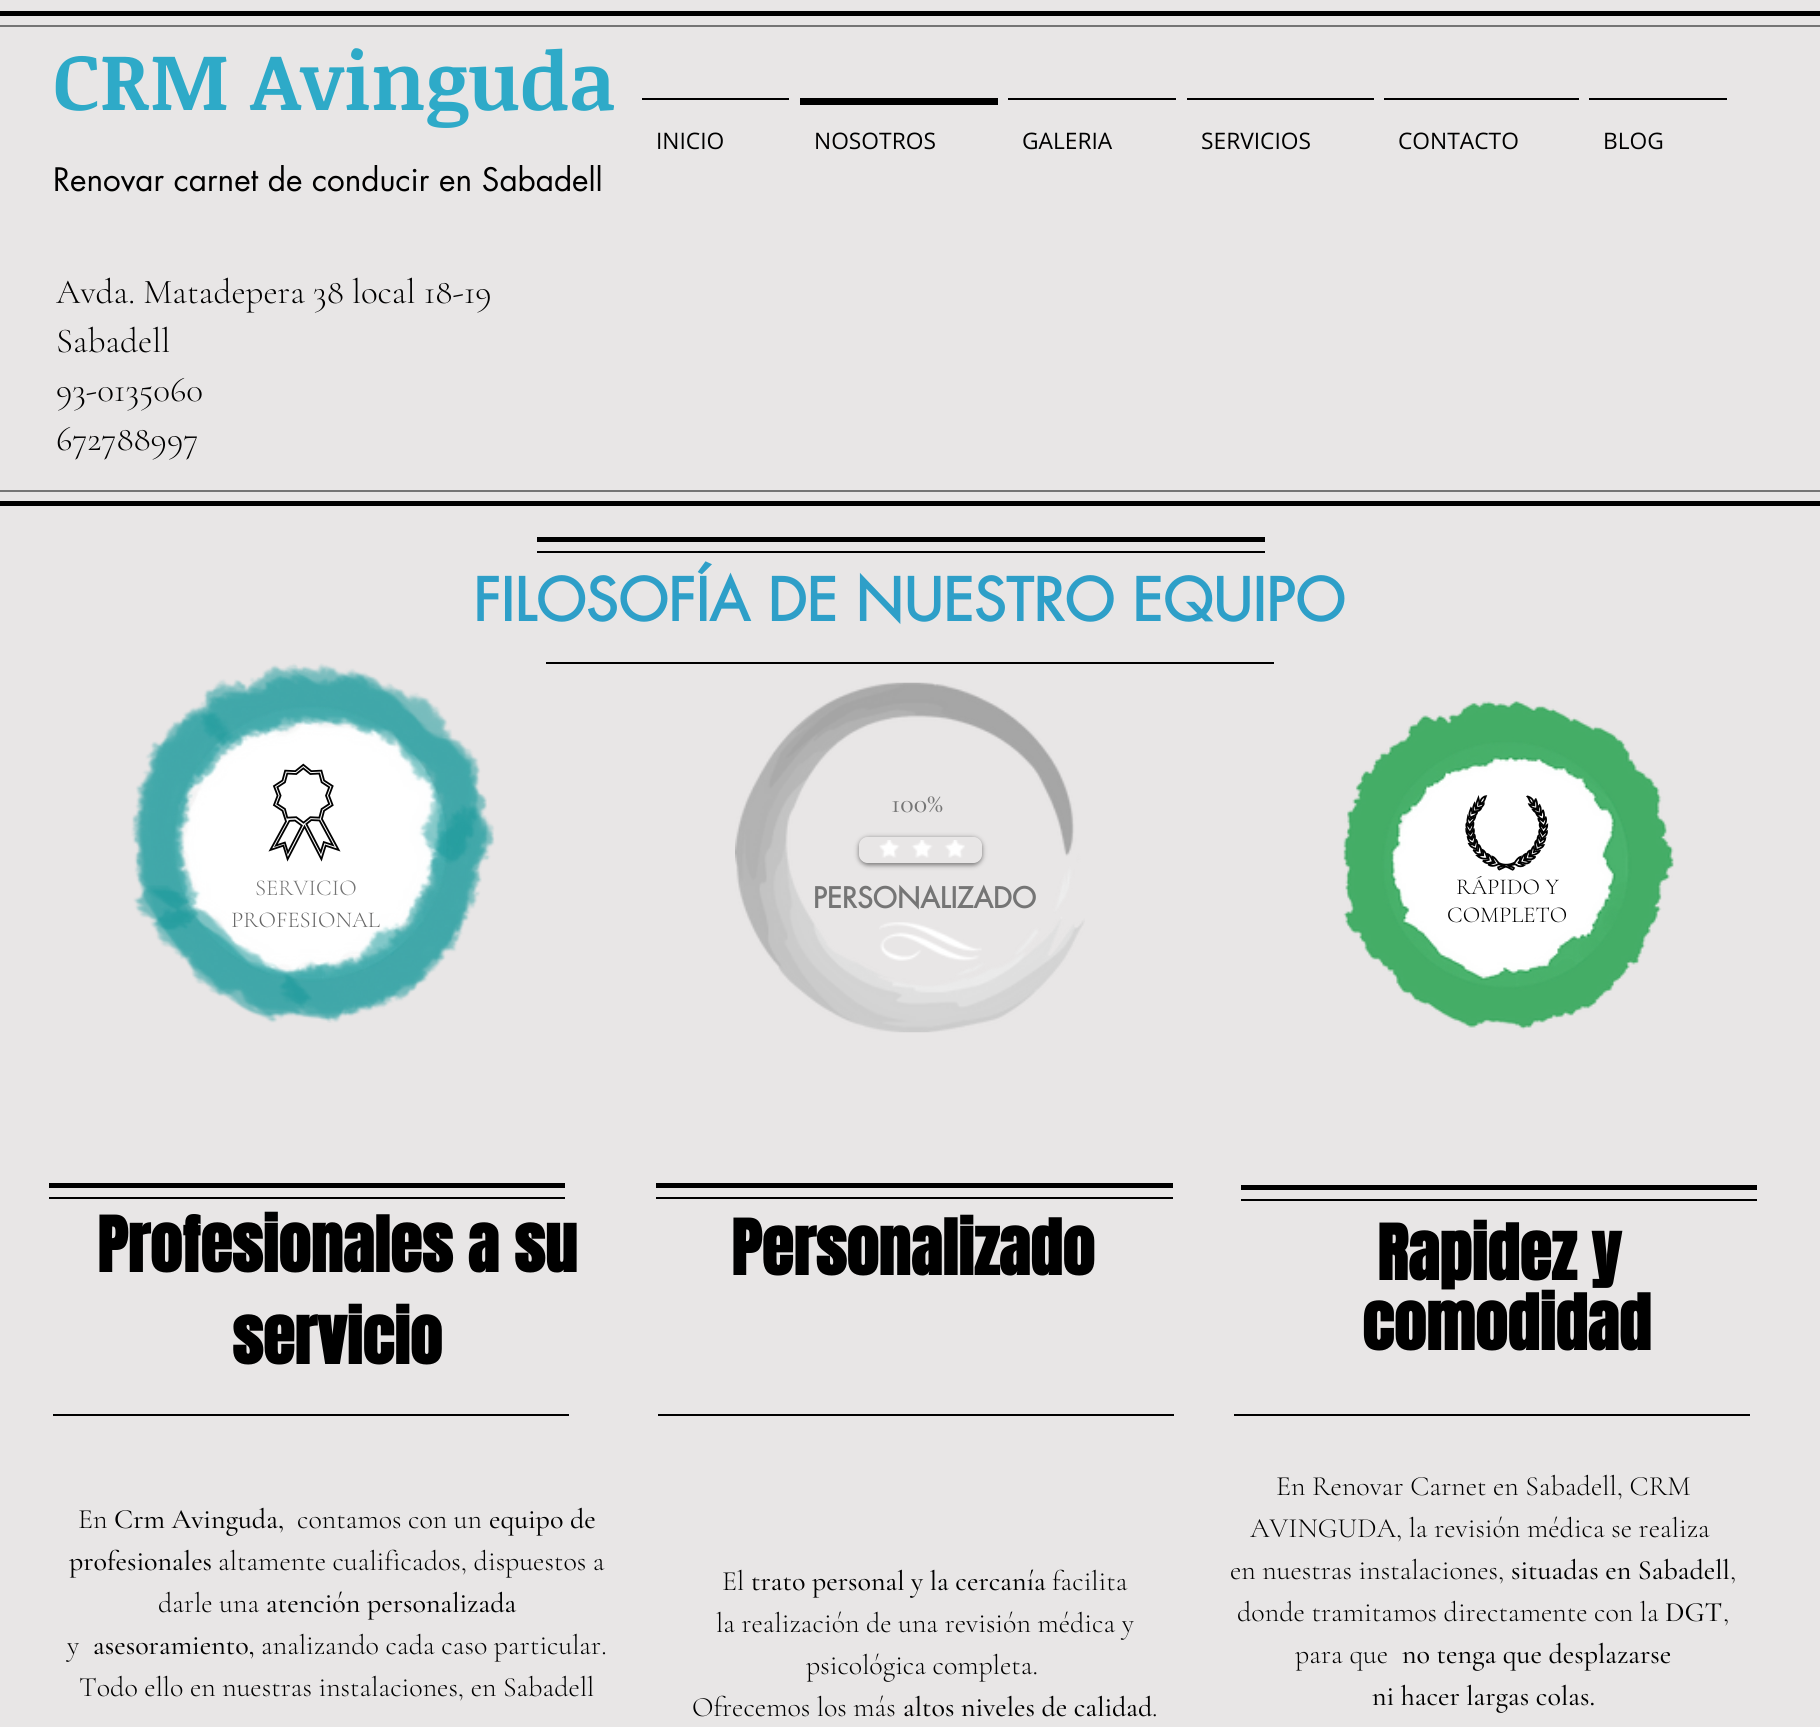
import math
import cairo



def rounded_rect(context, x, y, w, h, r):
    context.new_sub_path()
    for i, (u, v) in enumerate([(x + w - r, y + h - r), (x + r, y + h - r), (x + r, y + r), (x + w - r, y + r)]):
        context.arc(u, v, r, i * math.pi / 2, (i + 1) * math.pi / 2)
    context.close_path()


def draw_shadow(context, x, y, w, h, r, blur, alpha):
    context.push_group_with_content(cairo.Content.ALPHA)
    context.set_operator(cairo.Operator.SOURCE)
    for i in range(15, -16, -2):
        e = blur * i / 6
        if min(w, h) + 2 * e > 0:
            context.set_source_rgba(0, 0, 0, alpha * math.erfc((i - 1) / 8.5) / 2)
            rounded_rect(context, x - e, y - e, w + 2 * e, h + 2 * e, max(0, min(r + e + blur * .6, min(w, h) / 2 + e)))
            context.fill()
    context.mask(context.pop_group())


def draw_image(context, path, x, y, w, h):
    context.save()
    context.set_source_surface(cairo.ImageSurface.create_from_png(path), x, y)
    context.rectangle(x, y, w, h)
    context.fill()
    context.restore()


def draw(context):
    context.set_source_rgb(232 / 255, 230 / 255, 230 / 255)
    context.paint()
    context.set_source_rgb(0, 0, 0)
    context.rectangle(0, 11, 1820, 5)
    context.fill()
    context.rectangle(0, 501, 1820, 5)
    context.fill()
    context.set_source_rgb(117 / 255, 117 / 255, 117 / 255)
    context.rectangle(0, 25, 1820, 2)
    context.fill()
    context.rectangle(0, 490, 1820, 2)
    context.fill()
    context.set_source_rgb(0, 0, 0)
    context.rectangle(642, 98, 147, 2)
    context.fill()
    context.rectangle(800, 98, 198, 7)
    context.fill()
    context.rectangle(1008, 98, 168, 2)
    context.fill()
    context.rectangle(1187, 98, 187, 2)
    context.fill()
    context.rectangle(1384, 98, 195, 2)
    context.fill()
    context.rectangle(1589, 98, 138, 2)
    context.fill()
    context.rectangle(537, 537, 728, 5)
    context.fill()
    context.rectangle(537, 551, 728, 2)
    context.fill()
    draw_image(context, "images/1.png", 131, 663, 364, 360)
    context.rectangle(546, 662, 728, 2)
    context.fill()
    draw_image(context, "images/2.png", 268, 763, 73, 99)
    draw_image(context, "images/4.png", 1343, 700, 331, 330)
    draw_image(context, "images/5.png", 1465, 795, 84, 76)
    context.save()
    context.set_fill_rule(cairo.FillRule.EVEN_ODD)
    context.new_path()
    context.move_to(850, 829)
    context.line_to(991, 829)
    context.line_to(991, 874)
    context.line_to(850, 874)
    context.close_path()
    context.move_to(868, 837)
    context.line_to(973, 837)
    context.curve_to(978, 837, 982, 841, 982, 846)
    context.line_to(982, 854)
    context.curve_to(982, 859, 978, 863, 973, 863)
    context.line_to(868, 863)
    context.curve_to(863, 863, 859, 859, 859, 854)
    context.line_to(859, 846)
    context.curve_to(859, 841, 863, 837, 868, 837)
    context.close_path()
    context.clip()
    context.set_source_rgb(0, 0, 0)
    draw_shadow(context, 859, 838, 123, 27, 9, 2.5, 0.5)
    context.restore()
    draw_image(context, "images/6.png", 879, 840, 86, 18)
    draw_image(context, "images/7.png", 879, 922, 103, 39)
    context.rectangle(49, 1183, 516, 5)
    context.fill()
    context.rectangle(49, 1197, 516, 2)
    context.fill()
    context.rectangle(656, 1183, 517, 5)
    context.fill()
    context.rectangle(656, 1197, 517, 2)
    context.fill()
    context.rectangle(1241, 1185, 516, 5)
    context.fill()
    context.rectangle(1241, 1199, 516, 2)
    context.fill()
    context.rectangle(53, 1414, 516, 2)
    context.fill()
    context.rectangle(658, 1414, 516, 2)
    context.fill()
    context.rectangle(1234, 1414, 516, 2)
    context.fill()
    context.select_font_face("Noticia Text", cairo.FontSlant.NORMAL, cairo.FontWeight.BOLD)
    context.set_font_size(80.5)
    context.set_source_rgb(46 / 255, 170 / 255, 200 / 255)
    context.move_to(53, 110)
    context.show_text("CRM Avinguda")
    context.select_font_face("futura")
    context.set_font_size(31.5)
    context.set_source_rgb(0, 0, 0)
    context.move_to(53, 191)
    context.show_text("Renovar carnet de conducir en Sabadell")
    context.select_font_face("Open Sans")
    context.set_font_size(22.75)
    context.move_to(656, 149)
    context.show_text("INICIO")
    context.move_to(814, 149)
    context.show_text("NOSOTROS")
    context.move_to(1022, 149)
    context.show_text("GALERIA")
    context.move_to(1201, 149)
    context.show_text("SERVICIOS")
    context.move_to(1398, 149)
    context.show_text("CONTACTO")
    context.move_to(1603, 149)
    context.show_text("BLOG")
    context.select_font_face("Cormorant Garamond Light")
    context.set_font_size(35)
    context.move_to(56, 303)
    context.show_text("Avda. Matadepera 38 local 18-19")
    context.move_to(56, 352)
    context.show_text("Sabadell")
    context.move_to(56, 401)
    context.show_text("93-0135060")
    context.move_to(56, 450)
    context.show_text("672788997")
    context.select_font_face("futura", cairo.FontSlant.NORMAL, cairo.FontWeight.BOLD)
    context.set_font_size(57.75)
    context.set_source_rgb(46 / 255, 159 / 255, 200 / 255)
    context.move_to(473, 621)
    context.show_text("FILOSOFÍA DE NUESTRO EQUIPO")
    context.select_font_face("Cormorant Garamond Medium")
    context.set_font_size(28)
    context.set_source_rgb(117 / 255, 117 / 255, 117 / 255)
    context.move_to(891, 812)
    context.show_text("100%")
    context.select_font_face("Cormorant Garamond Light")
    context.set_font_size(22.75)
    context.move_to(255, 895)
    context.show_text("SERVICIO")
    context.set_source_rgb(101 / 255, 101 / 255, 101 / 255)
    context.move_to(231, 927)
    context.show_text("PROFESIONAL")
    context.select_font_face("futura", cairo.FontSlant.NORMAL, cairo.FontWeight.BOLD)
    context.set_font_size(28)
    context.set_source_rgb(117 / 255, 117 / 255, 117 / 255)
    context.move_to(813, 908)
    context.show_text("PERSONALIZADO")
    draw_image(context, "images/3.png", 735, 682, 350, 351)
    context.select_font_face("Cormorant Garamond Light")
    context.set_font_size(22.75)
    context.set_source_rgb(0, 0, 0)
    context.move_to(1456, 894)
    context.show_text("RÁPIDO Y")
    context.move_to(1447, 922)
    context.show_text("COMPLETO")
    context.select_font_face("Anton", cairo.FontSlant.NORMAL, cairo.FontWeight.BOLD)
    context.set_font_size(64.75)
    context.move_to(97, 1272)
    context.show_text("Profesionales a su")
    context.move_to(232, 1364)
    context.show_text("servicio")
    context.move_to(731, 1275)
    context.show_text("Personalizado")
    context.move_to(1377, 1280)
    context.show_text("Rapidez y")
    context.move_to(1362, 1350)
    context.show_text("comodidad")
    context.select_font_face("Cormorant Garamond Light")
    context.set_font_size(28)
    context.move_to(78, 1528)
    context.show_text("En")
    context.select_font_face("Cormorant Garamond Medium")
    context.move_to(114, 1528)
    context.show_text("Crm Avinguda,")
    context.select_font_face("Cormorant Garamond Light")
    context.move_to(297, 1528)
    context.show_text("contamos con un")
    context.select_font_face("Cormorant Garamond Medium")
    context.move_to(489, 1528)
    context.show_text("equipo de")
    context.move_to(69, 1570)
    context.show_text("profesionales")
    context.select_font_face("Cormorant Garamond Light")
    context.move_to(218, 1570)
    context.show_text("altamente cualificados, dispuestos a")
    context.move_to(158, 1612)
    context.show_text("darle una")
    context.select_font_face("Cormorant Garamond Medium")
    context.move_to(266, 1612)
    context.show_text("atención personalizada")
    context.select_font_face("Cormorant Garamond Light")
    context.move_to(67, 1654)
    context.show_text("y")
    context.select_font_face("Cormorant Garamond Medium")
    context.move_to(93, 1654)
    context.show_text("asesoramiento,")
    context.select_font_face("Cormorant Garamond Light")
    context.move_to(261, 1654)
    context.show_text("analizando cada caso particular.")
    context.move_to(79, 1696)
    context.show_text("Todo ello en nuestras instalaciones, en Sabadell")
    context.move_to(722, 1590)
    context.show_text("El")
    context.select_font_face("Cormorant Garamond Medium")
    context.move_to(751, 1590)
    context.show_text("trato personal y la cercanía")
    context.select_font_face("Cormorant Garamond Light")
    context.move_to(1052, 1590)
    context.show_text("facilita")
    context.move_to(716, 1632)
    context.show_text("la realización de una revisión médica y")
    context.move_to(806, 1674)
    context.show_text("psicológica completa.")
    context.move_to(692, 1716)
    context.show_text("Ofrecemos los más")
    context.select_font_face("Cormorant Garamond Medium")
    context.move_to(903, 1716)
    context.show_text("altos niveles de calidad")
    context.select_font_face("Cormorant Garamond Light")
    context.move_to(1152, 1716)
    context.show_text(".")
    context.move_to(1276, 1495)
    context.show_text("En Renovar Carnet en Sabadell, CRM")
    context.move_to(1250, 1537)
    context.show_text("AVINGUDA, la revisión médica se realiza")
    context.move_to(1230, 1579)
    context.show_text("en nuestras instalaciones,")
    context.select_font_face("Cormorant Garamond Medium")
    context.move_to(1511, 1579)
    context.show_text("situadas en Sabadell")
    context.select_font_face("Cormorant Garamond Light")
    context.move_to(1730, 1579)
    context.show_text(",")
    context.move_to(1237, 1621)
    context.show_text("donde tramitamos directamente con la")
    context.select_font_face("Cormorant Garamond Medium")
    context.move_to(1665, 1621)
    context.show_text("DGT")
    context.select_font_face("Cormorant Garamond Light")
    context.move_to(1723, 1621)
    context.show_text(",")
    context.move_to(1295, 1663)
    context.show_text("para que")
    context.select_font_face("Cormorant Garamond Medium")
    context.move_to(1402, 1663)
    context.show_text("no tenga que desplazarse")
    context.move_to(1372, 1705)
    context.show_text("ni hacer largas colas.")


surface = cairo.ImageSurface(cairo.Format.RGB24, 1820, 1727)
context = cairo.Context(surface)
options = cairo.FontOptions()
options.set_hint_metrics(cairo.HintMetrics.OFF)
options.set_hint_style(cairo.HintStyle.NONE)
context.set_font_options(options)
context.set_miter_limit(4)
draw(context)
surface.write_to_png("out.png")
